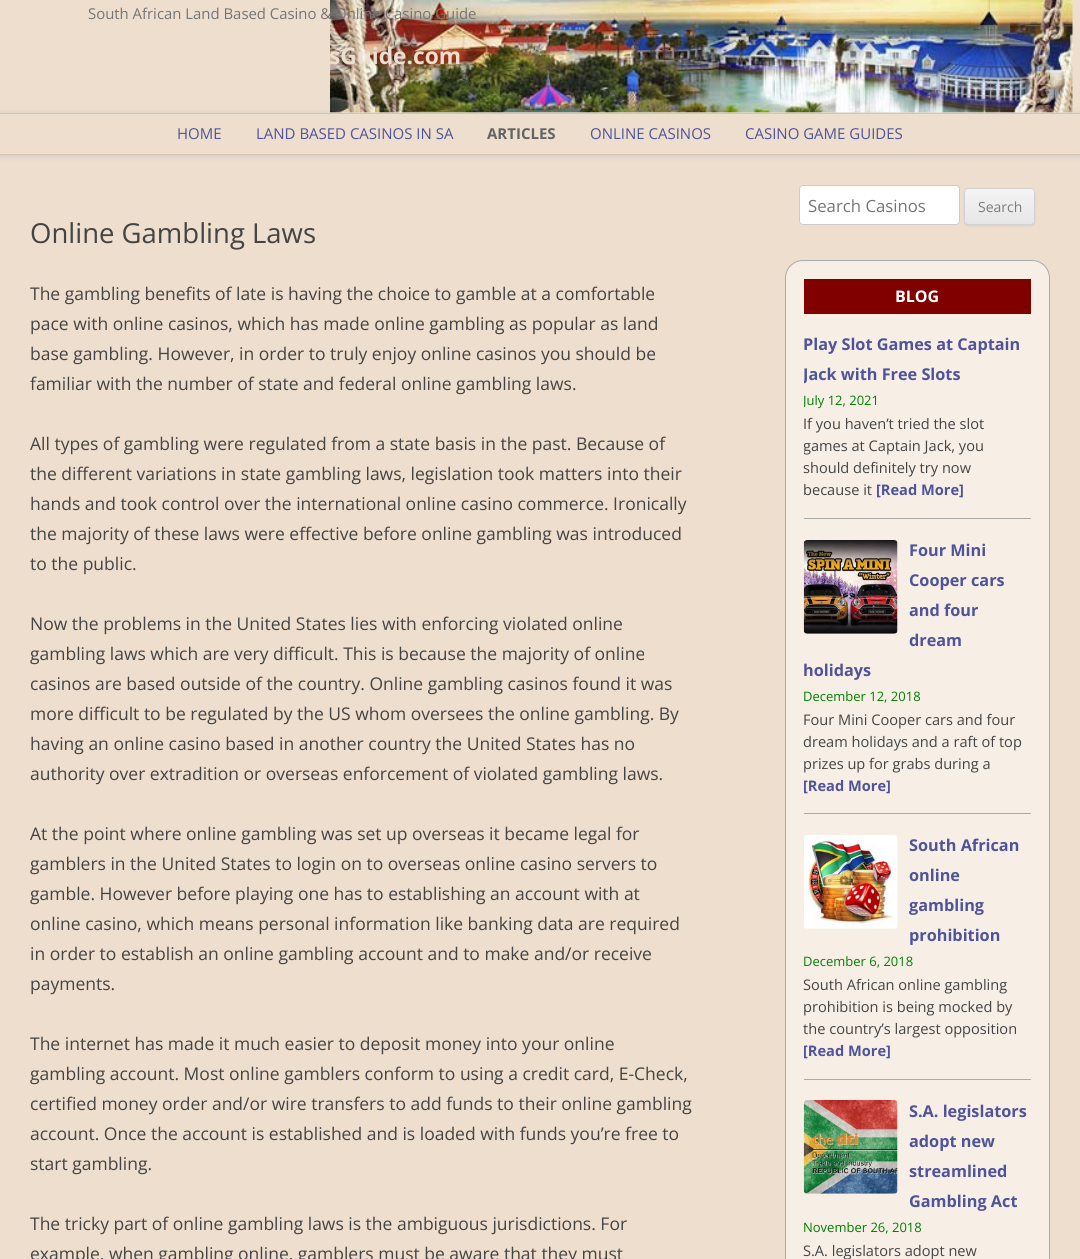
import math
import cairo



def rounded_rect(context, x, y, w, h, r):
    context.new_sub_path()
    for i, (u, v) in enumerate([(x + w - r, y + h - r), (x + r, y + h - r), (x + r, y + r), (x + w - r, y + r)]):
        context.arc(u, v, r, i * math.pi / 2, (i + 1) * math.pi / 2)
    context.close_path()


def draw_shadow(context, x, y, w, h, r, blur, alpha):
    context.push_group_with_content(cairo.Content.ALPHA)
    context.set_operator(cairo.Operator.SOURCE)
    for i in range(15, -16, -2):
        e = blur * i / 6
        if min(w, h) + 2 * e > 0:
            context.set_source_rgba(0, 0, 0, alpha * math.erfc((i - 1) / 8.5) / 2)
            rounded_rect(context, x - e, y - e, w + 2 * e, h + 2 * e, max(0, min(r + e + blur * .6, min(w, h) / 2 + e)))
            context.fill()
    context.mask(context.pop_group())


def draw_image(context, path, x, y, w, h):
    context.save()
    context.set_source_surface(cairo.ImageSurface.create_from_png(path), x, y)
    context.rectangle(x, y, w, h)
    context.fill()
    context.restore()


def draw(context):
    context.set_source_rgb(238 / 255, 222 / 255, 205 / 255)
    context.paint()
    context.save()
    context.set_fill_rule(cairo.FillRule.EVEN_ODD)
    context.new_path()
    context.move_to(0, 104)
    context.line_to(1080, 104)
    context.line_to(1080, 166)
    context.line_to(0, 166)
    context.close_path()
    context.move_to(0, 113)
    context.line_to(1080, 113)
    context.line_to(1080, 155)
    context.line_to(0, 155)
    context.close_path()
    context.clip()
    context.set_source_rgb(204 / 255, 204 / 255, 204 / 255)
    draw_shadow(context, 0, 114, 1080, 42, 0, 3, 1)
    context.restore()
    draw_image(context, "images/1.png", 330, 0, 743, 113)
    context.set_source_rgb(215 / 255, 197 / 255, 178 / 255)
    context.rectangle(0, 113, 1080, 1)
    context.fill()
    context.rectangle(0, 154, 1080, 1)
    context.fill()
    context.set_source_rgb(1, 1, 1)
    rounded_rect(context, 799.5, 185.5, 160, 39, 3.5)
    context.fill_preserve()
    context.set_source_rgb(204 / 255, 204 / 255, 204 / 255)
    context.set_line_width(1)
    context.stroke()
    context.set_source_rgb(64 / 255, 64 / 255, 64 / 255)
    draw_shadow(context, 964, 189, 71, 37, 4, 1, 0.1)
    context.save()
    rounded_rect(context, 964, 188, 71, 37, 4)
    context.clip()
    gradient = cairo.LinearGradient(999, 189, 999, 224)
    gradient.add_color_stop_rgba(0, 244 / 255, 244 / 255, 244 / 255, 1)
    gradient.add_color_stop_rgba(1, 230 / 255, 230 / 255, 230 / 255, 1)
    context.set_source(gradient)
    context.rectangle(964, 189, 71, 35)
    context.fill()
    context.restore()
    rounded_rect(context, 964.5, 188.5, 70, 36, 3.5)
    context.set_source_rgb(210 / 255, 210 / 255, 210 / 255)
    context.stroke()
    context.set_source_rgb(247 / 255, 239 / 255, 230 / 255)
    rounded_rect(context, 785.5, 260.5, 264, 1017, 17.5)
    context.fill_preserve()
    context.set_source_rgb(170 / 255, 170 / 255, 170 / 255)
    context.stroke()
    context.set_source_rgb(128 / 255, 0, 0)
    context.rectangle(804, 279, 227, 35)
    context.fill()
    context.set_source_rgb(170 / 255, 170 / 255, 170 / 255)
    context.rectangle(804, 518, 227, 1)
    context.fill()
    context.rectangle(804, 813, 227, 1)
    context.fill()
    draw_image(context, "images/2.png", 803, 540, 95, 94)
    context.rectangle(804, 1079, 227, 1)
    context.fill()
    draw_image(context, "images/3.png", 804, 835, 94, 94)
    draw_image(context, "images/4.png", 803, 1100, 95, 94)
    context.select_font_face("Open Sans")
    context.set_font_size(14.9)
    context.set_source_rgb(117 / 255, 117 / 255, 117 / 255)
    context.move_to(88, 19)
    context.show_text("South African Land Based Casino & Online Casino Guide")
    context.select_font_face("Open Sans", cairo.FontSlant.NORMAL, cairo.FontWeight.BOLD)
    context.set_font_size(22.75)
    context.set_source_rgb(238 / 255, 222 / 255, 205 / 255)
    context.move_to(329, 64)
    context.show_text("sGuide.com")
    context.select_font_face("Open Sans")
    context.set_font_size(15)
    context.set_source_rgb(79 / 255, 83 / 255, 154 / 255)
    context.move_to(177, 139)
    context.show_text("HOME")
    context.move_to(256, 139)
    context.show_text("LAND BASED CASINOS IN SA")
    context.select_font_face("Open Sans", cairo.FontSlant.NORMAL, cairo.FontWeight.BOLD)
    context.set_source_rgb(99 / 255, 99 / 255, 99 / 255)
    context.move_to(487, 139)
    context.show_text("ARTICLES")
    context.select_font_face("Open Sans")
    context.set_source_rgb(79 / 255, 83 / 255, 154 / 255)
    context.move_to(590, 139)
    context.show_text("ONLINE CASINOS")
    context.move_to(745, 139)
    context.show_text("CASINO GAME GUIDES")
    context.set_font_size(27.5)
    context.set_source_rgb(68 / 255, 68 / 255, 68 / 255)
    context.move_to(30, 243)
    context.show_text("Online Gambling Laws")
    context.set_font_size(17.5)
    context.move_to(30, 300)
    context.show_text("The gambling benefits of late is having the choice to gamble at a comfortable")
    context.move_to(30, 330)
    context.show_text("pace with online casinos, which has made online gambling as popular as land")
    context.move_to(30, 360)
    context.show_text("base gambling. However, in order to truly enjoy online casinos you should be")
    context.move_to(30, 390)
    context.show_text("familiar with the number of state and federal online gambling laws.")
    context.move_to(30, 450)
    context.show_text("All types of gambling were regulated from a state basis in the past. Because of")
    context.move_to(30, 480)
    context.show_text("the different variations in state gambling laws, legislation took matters into their")
    context.move_to(30, 510)
    context.show_text("hands and took control over the international online casino commerce. Ironically")
    context.move_to(30, 540)
    context.show_text("the majority of these laws were effective before online gambling was introduced")
    context.move_to(30, 570)
    context.show_text("to the public.")
    context.move_to(30, 630)
    context.show_text("Now the problems in the United States lies with enforcing violated online")
    context.move_to(30, 660)
    context.show_text("gambling laws which are very difficult. This is because the majority of online")
    context.move_to(30, 690)
    context.show_text("casinos are based outside of the country. Online gambling casinos found it was")
    context.move_to(30, 720)
    context.show_text("more difficult to be regulated by the US whom oversees the online gambling. By")
    context.move_to(30, 750)
    context.show_text("having an online casino based in another country the United States has no")
    context.move_to(30, 780)
    context.show_text("authority over extradition or overseas enforcement of violated gambling laws.")
    context.move_to(30, 840)
    context.show_text("At the point where online gambling was set up overseas it became legal for")
    context.move_to(30, 870)
    context.show_text("gamblers in the United States to login on to overseas online casino servers to")
    context.move_to(30, 900)
    context.show_text("gamble. However before playing one has to establishing an account with at")
    context.move_to(30, 930)
    context.show_text("online casino, which means personal information like banking data are required")
    context.move_to(30, 960)
    context.show_text("in order to establish an online gambling account and to make and/or receive")
    context.move_to(30, 990)
    context.show_text("payments.")
    context.move_to(30, 1050)
    context.show_text("The internet has made it much easier to deposit money into your online")
    context.move_to(30, 1080)
    context.show_text("gambling account. Most online gamblers conform to using a credit card, E-Check,")
    context.move_to(30, 1110)
    context.show_text("certified money order and/or wire transfers to add funds to their online gambling")
    context.move_to(30, 1140)
    context.show_text("account. Once the account is established and is loaded with funds you’re free to")
    context.move_to(30, 1170)
    context.show_text("start gambling.")
    context.move_to(30, 1230)
    context.show_text("The tricky part of online gambling laws is the ambiguous jurisdictions. For")
    context.move_to(30, 1260)
    context.show_text("example, when gambling online, gamblers must be aware that they must")
    context.set_font_size(16.75)
    context.set_source_rgb(117 / 255, 117 / 255, 117 / 255)
    context.move_to(808, 212)
    context.show_text("Search Casinos")
    context.set_font_size(14)
    context.set_source_rgb(124 / 255, 124 / 255, 124 / 255)
    context.move_to(978, 212)
    context.show_text("Search")
    context.select_font_face("Open Sans", cairo.FontSlant.NORMAL, cairo.FontWeight.BOLD)
    context.set_font_size(16)
    context.set_source_rgb(1, 1, 1)
    context.move_to(895, 302)
    context.show_text("BLOG")
    context.set_font_size(16.25)
    context.set_source_rgb(79 / 255, 83 / 255, 154 / 255)
    context.move_to(803, 350)
    context.show_text("Play Slot Games at Captain")
    context.save()
    context.rectangle(804, 329, 227, 189)
    context.clip()
    context.move_to(803, 380)
    context.show_text("Jack with Free Slots")
    context.select_font_face("Open Sans")
    context.set_font_size(13)
    context.set_source_rgb(0, 128 / 255, 0)
    context.move_to(803, 405)
    context.show_text("July 12, 2021")
    context.restore()
    context.select_font_face("Open Sans")
    context.set_font_size(14.6)
    context.set_source_rgb(68 / 255, 68 / 255, 68 / 255)
    context.move_to(803, 429)
    context.show_text("If you haven’t tried the slot")
    context.save()
    context.rectangle(804, 329, 227, 189)
    context.clip()
    context.move_to(803, 451)
    context.show_text("games at Captain Jack, you")
    context.restore()
    context.move_to(803, 473)
    context.show_text("should definitely try now")
    context.move_to(803, 495)
    context.show_text("because it")
    context.select_font_face("Open Sans", cairo.FontSlant.NORMAL, cairo.FontWeight.BOLD)
    context.set_source_rgb(79 / 255, 83 / 255, 154 / 255)
    context.move_to(876, 495)
    context.show_text("[Read More]")
    context.set_font_size(16.25)
    context.move_to(909, 556)
    context.show_text("Four Mini")
    context.move_to(909, 586)
    context.show_text("Cooper cars")
    context.move_to(909, 616)
    context.show_text("and four")
    context.move_to(909, 646)
    context.show_text("dream")
    context.move_to(803, 676)
    context.show_text("holidays")
    context.select_font_face("Open Sans")
    context.set_font_size(13)
    context.set_source_rgb(0, 128 / 255, 0)
    context.move_to(803, 701)
    context.show_text("December 12, 2018")
    context.set_font_size(14.6)
    context.set_source_rgb(68 / 255, 68 / 255, 68 / 255)
    context.move_to(803, 725)
    context.show_text("Four Mini Cooper cars and four")
    context.move_to(803, 747)
    context.show_text("dream holidays and a raft of top")
    context.move_to(803, 769)
    context.show_text("prizes up for grabs during a")
    context.select_font_face("Open Sans", cairo.FontSlant.NORMAL, cairo.FontWeight.BOLD)
    context.set_source_rgb(79 / 255, 83 / 255, 154 / 255)
    context.move_to(803, 791)
    context.show_text("[Read More]")
    context.set_font_size(16.25)
    context.move_to(909, 851)
    context.show_text("South African")
    context.move_to(909, 881)
    context.show_text("online")
    context.move_to(909, 911)
    context.show_text("gambling")
    context.move_to(909, 941)
    context.show_text("prohibition")
    context.select_font_face("Open Sans")
    context.set_font_size(13)
    context.set_source_rgb(0, 128 / 255, 0)
    context.move_to(803, 966)
    context.show_text("December 6, 2018")
    context.set_font_size(14.6)
    context.set_source_rgb(68 / 255, 68 / 255, 68 / 255)
    context.move_to(803, 990)
    context.show_text("South African online gambling")
    context.move_to(803, 1012)
    context.show_text("prohibition is being mocked by")
    context.move_to(803, 1034)
    context.show_text("the country’s largest opposition")
    context.select_font_face("Open Sans", cairo.FontSlant.NORMAL, cairo.FontWeight.BOLD)
    context.set_source_rgb(79 / 255, 83 / 255, 154 / 255)
    context.move_to(803, 1056)
    context.show_text("[Read More]")
    context.set_font_size(16.25)
    context.move_to(909, 1117)
    context.show_text("S.A. legislators")
    context.move_to(909, 1147)
    context.show_text("adopt new")
    context.move_to(909, 1177)
    context.show_text("streamlined")
    context.move_to(909, 1207)
    context.show_text("Gambling Act")
    context.select_font_face("Open Sans")
    context.set_font_size(13)
    context.set_source_rgb(0, 128 / 255, 0)
    context.move_to(803, 1232)
    context.show_text("November 26, 2018")
    context.set_font_size(14.6)
    context.set_source_rgb(68 / 255, 68 / 255, 68 / 255)
    context.move_to(803, 1256)
    context.show_text("S.A. legislators adopt new")


surface = cairo.ImageSurface(cairo.Format.RGB24, 1080, 1259)
context = cairo.Context(surface)
options = cairo.FontOptions()
options.set_hint_metrics(cairo.HintMetrics.OFF)
options.set_hint_style(cairo.HintStyle.NONE)
context.set_font_options(options)
context.set_miter_limit(4)
draw(context)
surface.write_to_png("out.png")
